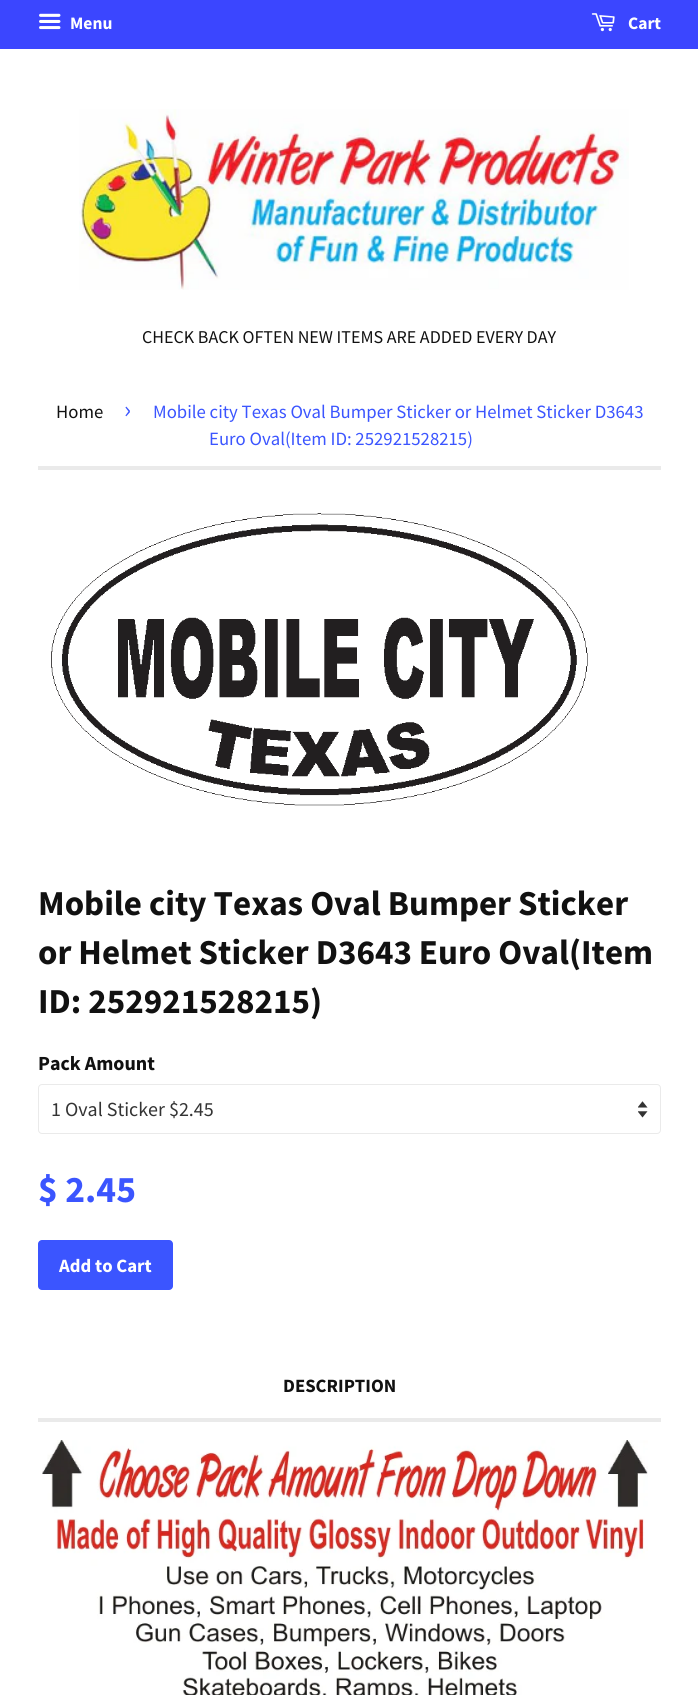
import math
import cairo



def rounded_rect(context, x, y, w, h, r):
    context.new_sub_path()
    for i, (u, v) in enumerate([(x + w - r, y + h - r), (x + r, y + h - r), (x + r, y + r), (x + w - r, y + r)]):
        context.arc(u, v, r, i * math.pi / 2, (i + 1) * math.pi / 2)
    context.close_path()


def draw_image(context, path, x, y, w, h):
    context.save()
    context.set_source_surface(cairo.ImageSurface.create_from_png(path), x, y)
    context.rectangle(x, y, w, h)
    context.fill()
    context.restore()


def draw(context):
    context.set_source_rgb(1, 1, 1)
    context.paint()
    context.set_source_rgb(59 / 255, 70 / 255, 1)
    context.rectangle(0, 0, 698, 49)
    context.fill()
    draw_image(context, "images/1.png", 39, 13, 22, 17)
    draw_image(context, "images/2.png", 591, 13, 24, 19)
    draw_image(context, "images/3.png", 79, 109, 550, 181)
    context.set_source_rgb(234 / 255, 234 / 255, 234 / 255)
    context.rectangle(38, 466, 623, 4)
    context.fill()
    draw_image(context, "images/4.png", 51, 513, 537, 293)
    draw_image(context, "images/5.png", 638, 1101, 10, 17)
    rounded_rect(context, 38.5, 1084.5, 622, 49, 3.5)
    context.set_line_width(1)
    context.stroke()
    context.set_source_rgb(59 / 255, 85 / 255, 1)
    rounded_rect(context, 38, 1240, 135, 50, 4)
    context.fill()
    context.set_source_rgb(234 / 255, 234 / 255, 234 / 255)
    context.rectangle(38, 1418, 623, 4)
    context.fill()
    draw_image(context, "images/6.png", 42, 1440, 606, 255)
    context.select_font_face("Source Sans Pro", cairo.FontSlant.NORMAL, cairo.FontWeight.BOLD)
    context.set_font_size(17.5)
    context.set_source_rgb(1, 1, 1)
    context.move_to(70, 29)
    context.show_text("Menu")
    context.move_to(628, 29)
    context.show_text("Cart")
    context.select_font_face("Source Sans Pro")
    context.set_font_size(18)
    context.set_source_rgb(17 / 255, 17 / 255, 17 / 255)
    context.move_to(142, 343)
    context.show_text("CHECK BACK OFTEN NEW ITEMS ARE ADDED EVERY DAY")
    context.set_font_size(18.75)
    context.move_to(56, 418)
    context.show_text("Home")
    context.set_font_size(26)
    context.set_source_rgb(59 / 255, 85 / 255, 1)
    context.move_to(124, 418)
    context.show_text("›")
    context.set_font_size(18.75)
    context.move_to(153, 418)
    context.show_text("Mobile city Texas Oval Bumper Sticker or Helmet Sticker D3643")
    context.move_to(209, 445)
    context.show_text("Euro Oval(Item ID: 252921528215)")
    context.select_font_face("Source Sans Pro", cairo.FontSlant.NORMAL, cairo.FontWeight.BOLD)
    context.set_font_size(35)
    context.set_source_rgb(17 / 255, 17 / 255, 17 / 255)
    context.move_to(38, 915)
    context.show_text("Mobile city Texas Oval Bumper Sticker")
    context.move_to(38, 964)
    context.show_text("or Helmet Sticker D3643 Euro Oval(Item")
    context.move_to(38, 1013)
    context.show_text("ID: 252921528215)")
    context.set_font_size(20)
    context.move_to(38, 1070)
    context.show_text("Pack Amount")
    context.select_font_face("Source Sans Pro")
    context.set_source_rgb(51 / 255, 51 / 255, 51 / 255)
    context.move_to(51, 1116)
    context.show_text("1 Oval Sticker $2.45")
    context.select_font_face("Source Sans Pro", cairo.FontSlant.NORMAL, cairo.FontWeight.BOLD)
    context.set_font_size(37.5)
    context.set_source_rgb(59 / 255, 85 / 255, 1)
    context.move_to(38, 1202)
    context.show_text("$ 2.45")
    context.set_font_size(18.75)
    context.set_source_rgb(1, 1, 1)
    context.move_to(59, 1272)
    context.show_text("Add to Cart")
    context.set_source_rgb(17 / 255, 17 / 255, 17 / 255)
    context.move_to(283, 1392)
    context.show_text("DESCRIPTION")


surface = cairo.ImageSurface(cairo.Format.RGB24, 698, 1695)
context = cairo.Context(surface)
options = cairo.FontOptions()
options.set_hint_metrics(cairo.HintMetrics.OFF)
options.set_hint_style(cairo.HintStyle.NONE)
context.set_font_options(options)
context.set_miter_limit(4)
draw(context)
surface.write_to_png("out.png")
